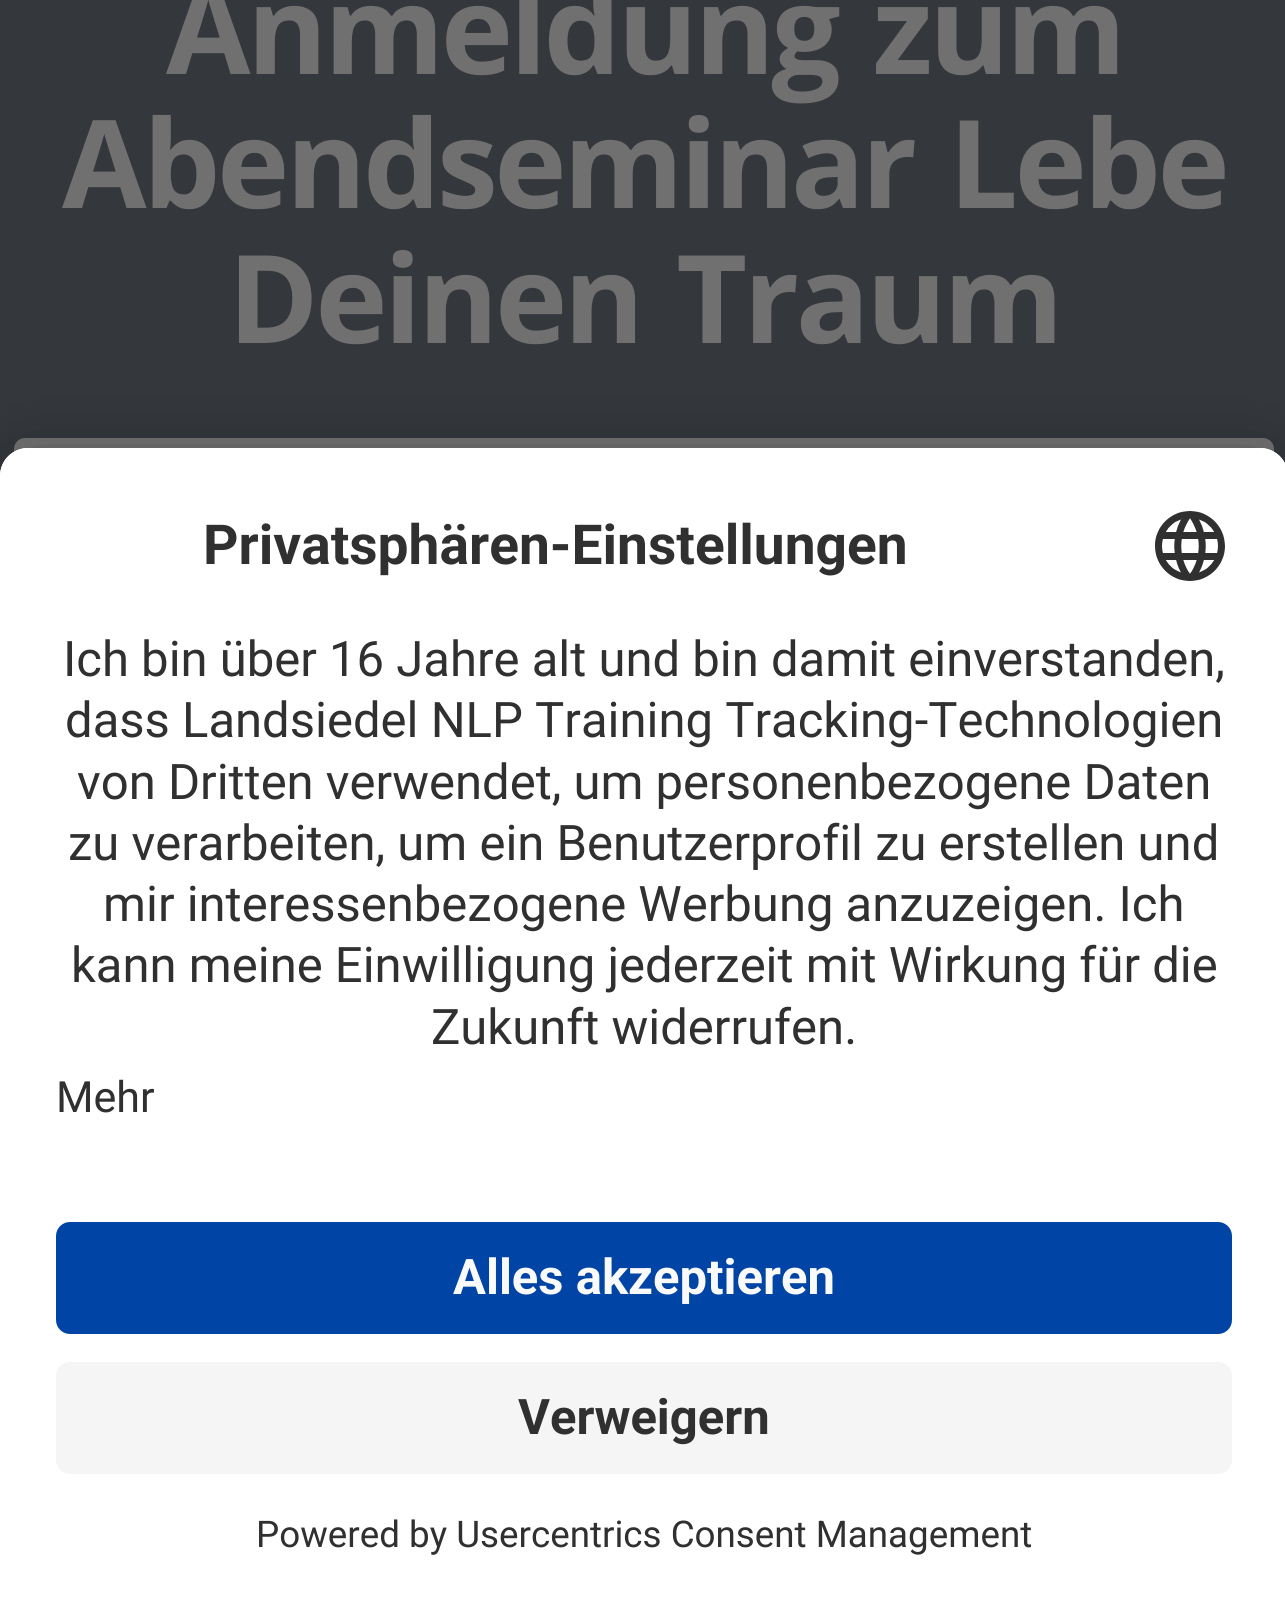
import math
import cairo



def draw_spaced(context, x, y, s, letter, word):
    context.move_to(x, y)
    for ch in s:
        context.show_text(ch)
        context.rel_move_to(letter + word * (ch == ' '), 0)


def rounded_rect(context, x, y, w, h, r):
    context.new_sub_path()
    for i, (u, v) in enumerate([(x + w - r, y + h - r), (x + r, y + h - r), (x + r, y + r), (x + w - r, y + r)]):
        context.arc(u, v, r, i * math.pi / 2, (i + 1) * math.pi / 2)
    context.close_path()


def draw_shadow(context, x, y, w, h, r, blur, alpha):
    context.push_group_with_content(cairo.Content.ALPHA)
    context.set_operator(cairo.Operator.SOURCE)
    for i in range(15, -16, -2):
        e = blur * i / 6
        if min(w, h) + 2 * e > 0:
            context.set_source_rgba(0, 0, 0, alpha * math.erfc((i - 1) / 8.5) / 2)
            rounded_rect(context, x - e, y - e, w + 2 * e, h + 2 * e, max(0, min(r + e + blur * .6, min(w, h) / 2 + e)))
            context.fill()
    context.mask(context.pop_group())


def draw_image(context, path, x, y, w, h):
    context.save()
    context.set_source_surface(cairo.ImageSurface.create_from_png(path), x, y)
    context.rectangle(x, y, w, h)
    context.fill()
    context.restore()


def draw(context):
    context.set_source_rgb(52 / 255, 55 / 255, 59 / 255)
    context.paint()
    context.set_source_rgb(112 / 255, 112 / 255, 112 / 255)
    rounded_rect(context, 14, 438, 1260, 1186, 11)
    context.fill()
    context.set_source_rgb(0, 0, 0)
    draw_shadow(context, 0, 518, 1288, 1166, 28, 49, 0.3)
    draw_shadow(context, 0, 466, 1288, 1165, 28, 45.5, 0.22)
    context.set_source_rgb(1, 1, 1)
    context.new_path()
    context.move_to(28, 448)
    context.line_to(1260, 448)
    context.curve_to(1275.5, 448, 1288, 460.5, 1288, 476)
    context.line_to(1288, 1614)
    context.line_to(0, 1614)
    context.line_to(0, 476)
    context.curve_to(0, 460.5, 12.5, 448, 28, 448)
    context.close_path()
    context.fill()
    context.new_path()
    context.move_to(28, 448)
    context.line_to(1260, 448)
    context.curve_to(1275.5, 448, 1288, 460.5, 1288, 476)
    context.line_to(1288, 1180)
    context.line_to(0, 1180)
    context.line_to(0, 476)
    context.curve_to(0, 460.5, 12.5, 448, 28, 448)
    context.close_path()
    context.fill()
    draw_image(context, "images/1.png", 1155, 511, 70, 70)
    context.set_source_rgb(0, 69 / 255, 165 / 255)
    rounded_rect(context, 56, 1222, 1176, 112, 14)
    context.fill()
    context.set_source_rgb(245 / 255, 245 / 255, 245 / 255)
    rounded_rect(context, 56, 1362, 1176, 112, 14)
    context.fill()
    context.select_font_face("Open Sans", cairo.FontSlant.NORMAL, cairo.FontWeight.BOLD)
    context.set_font_size(122.5)
    context.set_source_rgb(112 / 255, 112 / 255, 112 / 255)
    draw_spaced(context, 166, 74, "Anmeldung zum", -3.5, 7)
    draw_spaced(context, 62, 208, "Abendseminar Lebe", -3.5, 7)
    draw_spaced(context, 228, 343, "Deinen Traum", -3.5, 7)
    context.select_font_face("Roboto", cairo.FontSlant.NORMAL, cairo.FontWeight.BOLD)
    context.set_font_size(55.1)
    context.set_source_rgb(48 / 255, 48 / 255, 48 / 255)
    context.move_to(203, 564)
    context.show_text("Privatsphären-Einstellungen")
    context.select_font_face("Roboto")
    context.set_font_size(49)
    context.move_to(63, 676)
    context.show_text("Ich bin über 16 Jahre alt und bin damit einverstanden,")
    context.move_to(65, 737)
    context.show_text("dass Landsiedel NLP Training Tracking-Technologien")
    context.move_to(77, 799)
    context.show_text("von Dritten verwendet, um personenbezogene Daten")
    context.move_to(68, 860)
    context.show_text("zu verarbeiten, um ein Benutzerprofil zu erstellen und")
    context.move_to(103, 921)
    context.show_text("mir interessenbezogene Werbung anzuzeigen. Ich")
    context.move_to(71, 982)
    context.show_text("kann meine Einwilligung jederzeit mit Wirkung für die")
    context.move_to(431, 1044)
    context.show_text("Zukunft widerrufen.")
    context.set_font_size(43)
    context.move_to(56, 1112)
    context.show_text("Mehr")
    context.select_font_face("Roboto", cairo.FontSlant.NORMAL, cairo.FontWeight.BOLD)
    context.set_font_size(49)
    context.set_source_rgb(250 / 255, 250 / 255, 250 / 255)
    context.move_to(453, 1294)
    context.show_text("Alles akzeptieren")
    context.set_source_rgb(48 / 255, 48 / 255, 48 / 255)
    context.move_to(518, 1434)
    context.show_text("Verweigern")
    context.select_font_face("Roboto")
    context.set_font_size(36.75)
    context.move_to(256, 1547)
    context.show_text("Powered by Usercentrics Consent Management")


surface = cairo.ImageSurface(cairo.Format.RGB24, 1285, 1613)
context = cairo.Context(surface)
options = cairo.FontOptions()
options.set_hint_metrics(cairo.HintMetrics.OFF)
options.set_hint_style(cairo.HintStyle.NONE)
context.set_font_options(options)
context.set_miter_limit(4)
draw(context)
surface.write_to_png("out.png")
